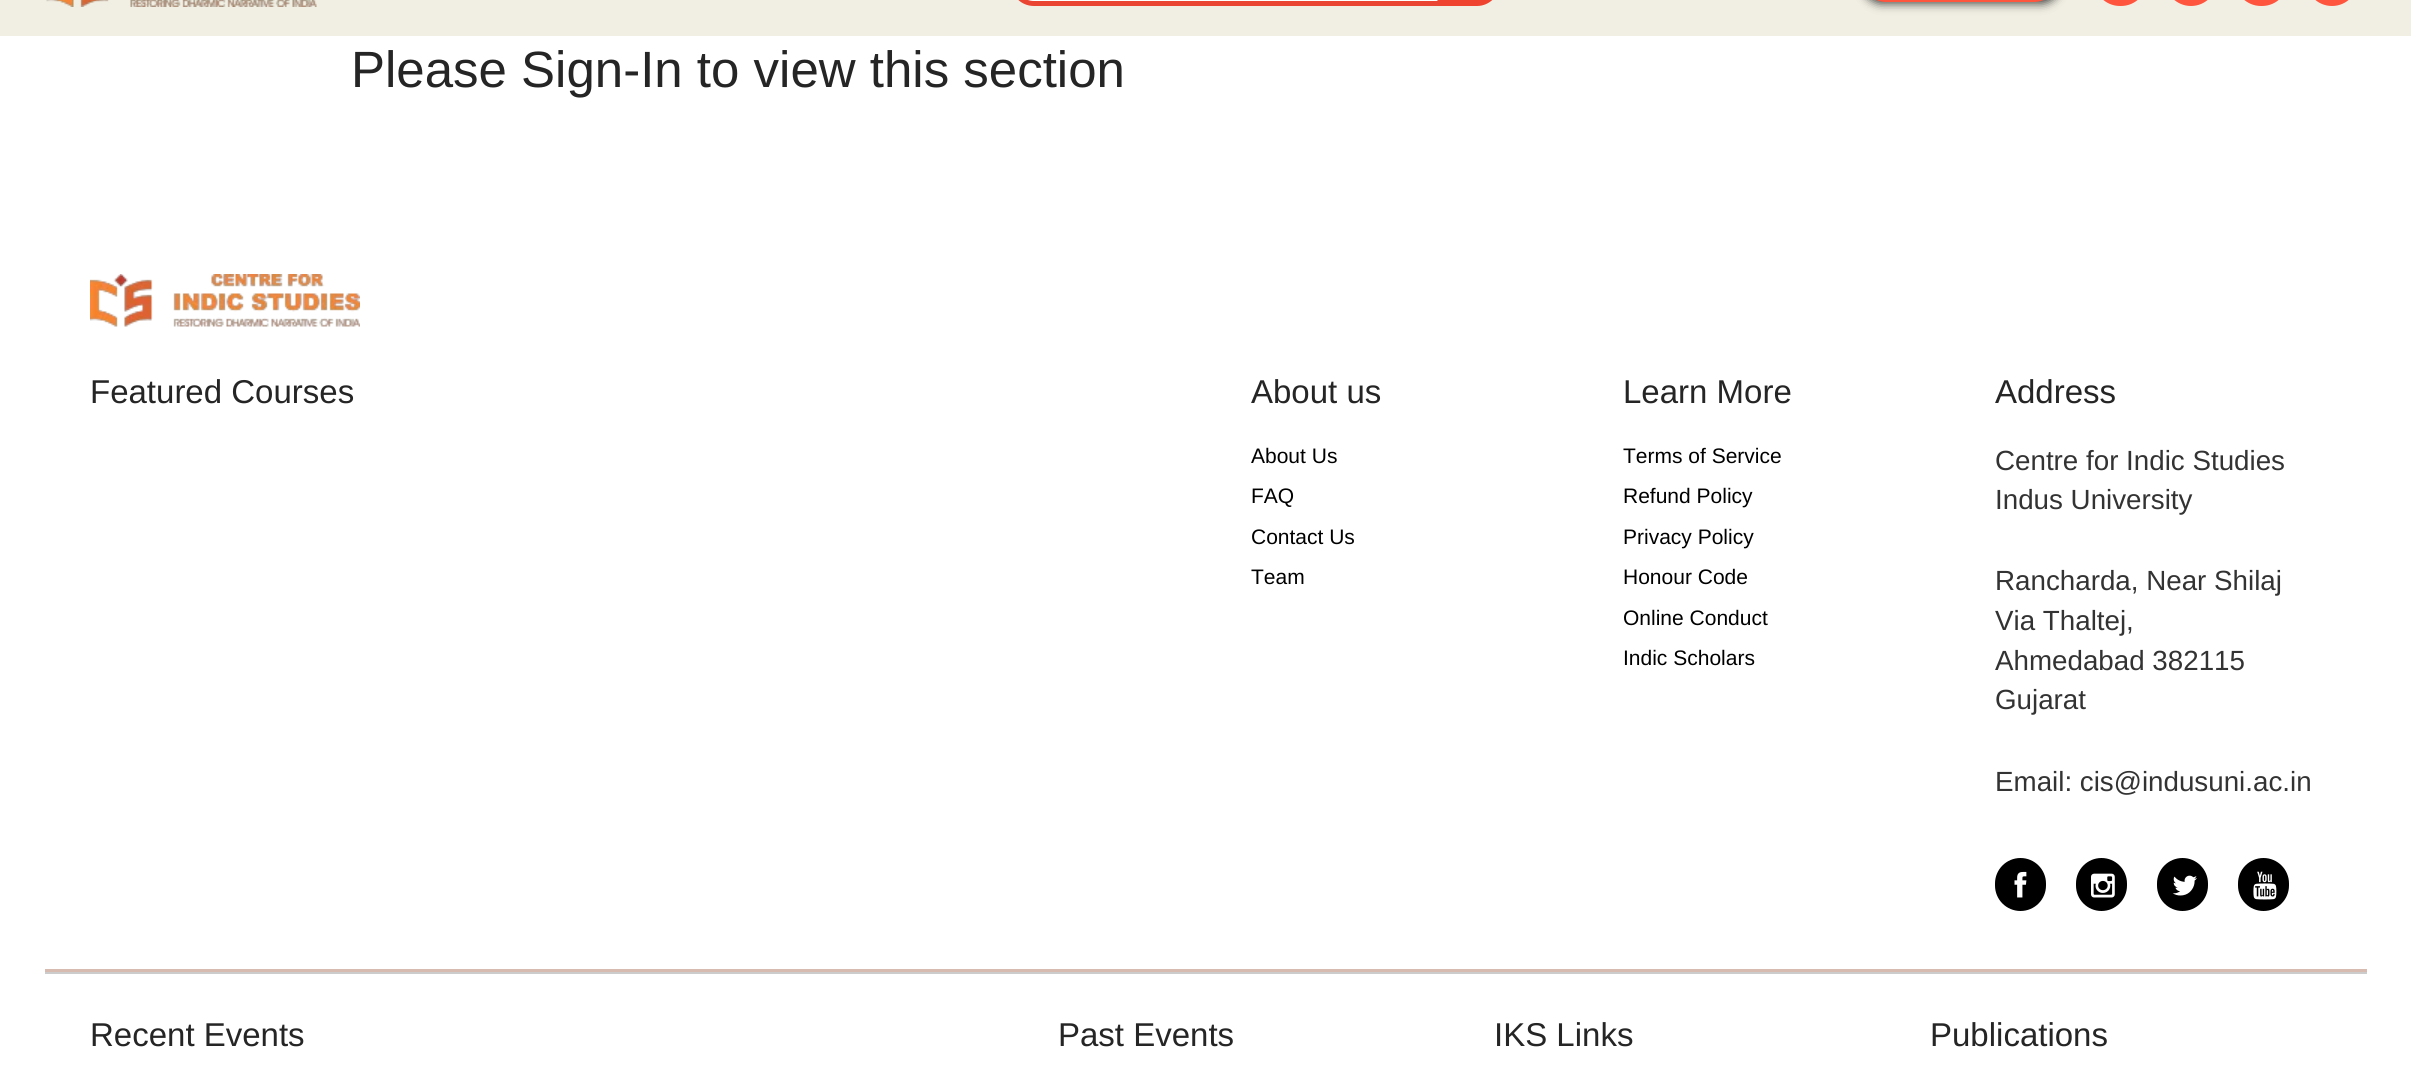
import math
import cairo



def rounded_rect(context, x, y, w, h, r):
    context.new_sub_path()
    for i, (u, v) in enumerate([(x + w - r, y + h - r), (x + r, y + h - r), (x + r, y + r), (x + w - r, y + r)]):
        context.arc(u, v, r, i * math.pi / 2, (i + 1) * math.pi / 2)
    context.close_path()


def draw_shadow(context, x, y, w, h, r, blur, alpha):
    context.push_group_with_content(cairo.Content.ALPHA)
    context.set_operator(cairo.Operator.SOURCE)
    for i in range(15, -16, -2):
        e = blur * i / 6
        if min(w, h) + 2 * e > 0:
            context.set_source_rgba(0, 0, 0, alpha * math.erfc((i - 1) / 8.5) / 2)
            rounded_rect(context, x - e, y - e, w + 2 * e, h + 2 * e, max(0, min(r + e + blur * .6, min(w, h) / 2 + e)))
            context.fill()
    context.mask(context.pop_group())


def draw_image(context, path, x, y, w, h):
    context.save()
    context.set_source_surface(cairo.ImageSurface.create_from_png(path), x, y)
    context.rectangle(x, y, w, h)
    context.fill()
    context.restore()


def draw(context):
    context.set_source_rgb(1, 1, 1)
    context.paint()
    context.set_source_rgb(241 / 255, 239 / 255, 227 / 255)
    context.rectangle(0, 0, 2411, 36)
    context.fill()
    draw_image(context, "images/1.png", 46, 0, 271, 7)
    context.set_source_rgb(1, 1, 1)
    context.new_path()
    context.move_to(1034, -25.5)
    context.line_to(1468, -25.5)
    context.curve_to(1471, -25.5, 1473.5, -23, 1473.5, -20)
    context.line_to(1473.5, -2)
    context.curve_to(1473.5, 1, 1471, 3.5, 1468, 3.5)
    context.line_to(1034, 3.5)
    context.curve_to(1022.5, 3.5, 1013.5, -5.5, 1013.5, -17)
    context.line_to(1013.5, -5)
    context.curve_to(1013.5, -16.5, 1022.5, -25.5, 1034, -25.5)
    context.close_path()
    context.fill_preserve()
    context.set_source_rgb(234 / 255, 68 / 255, 51 / 255)
    context.set_line_width(5)
    context.stroke()
    context.set_source_rgb(239 / 255, 67 / 255, 48 / 255)
    context.new_path()
    context.move_to(1445, -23)
    context.line_to(1477, -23)
    context.curve_to(1489.5, -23, 1500, -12.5, 1500, 0)
    context.line_to(1500, -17)
    context.curve_to(1500, -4.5, 1489.5, 6, 1477, 6)
    context.line_to(1445, 6)
    context.curve_to(1440.5, 6, 1437, 2.5, 1437, -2)
    context.line_to(1437, -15)
    context.curve_to(1437, -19.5, 1440.5, -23, 1445, -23)
    context.close_path()
    context.fill()
    context.set_source_rgb(51 / 255, 51 / 255, 51 / 255)
    draw_shadow(context, 1863, -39, 197, 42, 24, 5, 1)
    context.set_source_rgb(1, 85 / 255, 63 / 255)
    rounded_rect(context, 1862, -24, 196, 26, 24)
    context.fill()
    rounded_rect(context, 2094, -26, 53, 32, 26)
    context.fill()
    rounded_rect(context, 2165, -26, 52, 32, 26)
    context.fill()
    rounded_rect(context, 2235, -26, 53, 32, 26)
    context.fill()
    rounded_rect(context, 2306, -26, 52, 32, 26)
    context.fill()
    draw_image(context, "images/2.png", 90, 274, 270, 53)
    context.set_source_rgb(0, 0, 0)
    rounded_rect(context, 1995, 858, 51, 53, 25.5)
    context.fill()
    draw_image(context, "images/3.png", 2014, 871, 13, 27)
    rounded_rect(context, 2076, 858, 51, 53, 25.5)
    context.fill()
    draw_image(context, "images/4.png", 2091, 873, 24, 25)
    rounded_rect(context, 2157, 858, 51, 53, 25.5)
    context.fill()
    draw_image(context, "images/5.png", 2172, 875, 25, 21)
    rounded_rect(context, 2238, 858, 51, 53, 25.5)
    context.fill()
    draw_image(context, "images/6.png", 2253, 871, 24, 29)
    context.set_source_rgb(204 / 255, 204 / 255, 204 / 255)
    context.rectangle(45, 972, 2322, 2)
    context.fill()
    context.set_source_rgb(215 / 255, 187 / 255, 177 / 255)
    context.rectangle(45, 969, 2322, 3)
    context.fill()
    context.select_font_face("Liberation Sans")
    context.set_font_size(51)
    context.set_source_rgb(37 / 255, 37 / 255, 37 / 255)
    context.move_to(351, 87)
    context.show_text("Please Sign-In to view this section")
    context.set_font_size(33)
    context.move_to(90, 403)
    context.show_text("Featured Courses")
    context.move_to(1251, 403)
    context.show_text("About us")
    context.set_font_size(21)
    context.set_source_rgb(0, 0, 0)
    context.move_to(1251, 463)
    context.show_text("About Us")
    context.move_to(1251, 503)
    context.show_text("FAQ")
    context.move_to(1251, 544)
    context.show_text("Contact Us")
    context.move_to(1251, 584)
    context.show_text("Team")
    context.set_font_size(33)
    context.set_source_rgb(37 / 255, 37 / 255, 37 / 255)
    context.move_to(1623, 403)
    context.show_text("Learn More")
    context.set_font_size(21)
    context.set_source_rgb(0, 0, 0)
    context.move_to(1623, 463)
    context.show_text("Terms of Service")
    context.move_to(1623, 503)
    context.show_text("Refund Policy")
    context.move_to(1623, 544)
    context.show_text("Privacy Policy")
    context.move_to(1623, 584)
    context.show_text("Honour Code")
    context.move_to(1623, 625)
    context.show_text("Online Conduct")
    context.move_to(1623, 665)
    context.show_text("Indic Scholars")
    context.set_font_size(33)
    context.set_source_rgb(37 / 255, 37 / 255, 37 / 255)
    context.move_to(1995, 403)
    context.show_text("Address")
    context.set_font_size(27.75)
    context.set_source_rgb(51 / 255, 51 / 255, 51 / 255)
    context.move_to(1995, 470)
    context.show_text("Centre for Indic Studies")
    context.move_to(1995, 509)
    context.show_text("Indus University")
    context.move_to(1995, 590)
    context.show_text("Rancharda, Near Shilaj")
    context.move_to(1995, 630)
    context.show_text("Via Thaltej,")
    context.move_to(1995, 670)
    context.show_text("Ahmedabad 382115")
    context.move_to(1995, 709)
    context.show_text("Gujarat")
    context.move_to(1995, 791)
    context.show_text("Email: cis@indusuni.ac.in")
    context.set_font_size(33)
    context.set_source_rgb(37 / 255, 37 / 255, 37 / 255)
    context.move_to(90, 1046)
    context.show_text("Recent Events")
    context.move_to(1058, 1046)
    context.show_text("Past Events")
    context.move_to(1494, 1046)
    context.show_text("IKS Links")
    context.move_to(1930, 1046)
    context.show_text("Publications")


surface = cairo.ImageSurface(cairo.Format.RGB24, 2411, 1087)
context = cairo.Context(surface)
options = cairo.FontOptions()
options.set_hint_metrics(cairo.HintMetrics.OFF)
options.set_hint_style(cairo.HintStyle.NONE)
context.set_font_options(options)
context.set_miter_limit(4)
draw(context)
surface.write_to_png("out.png")
